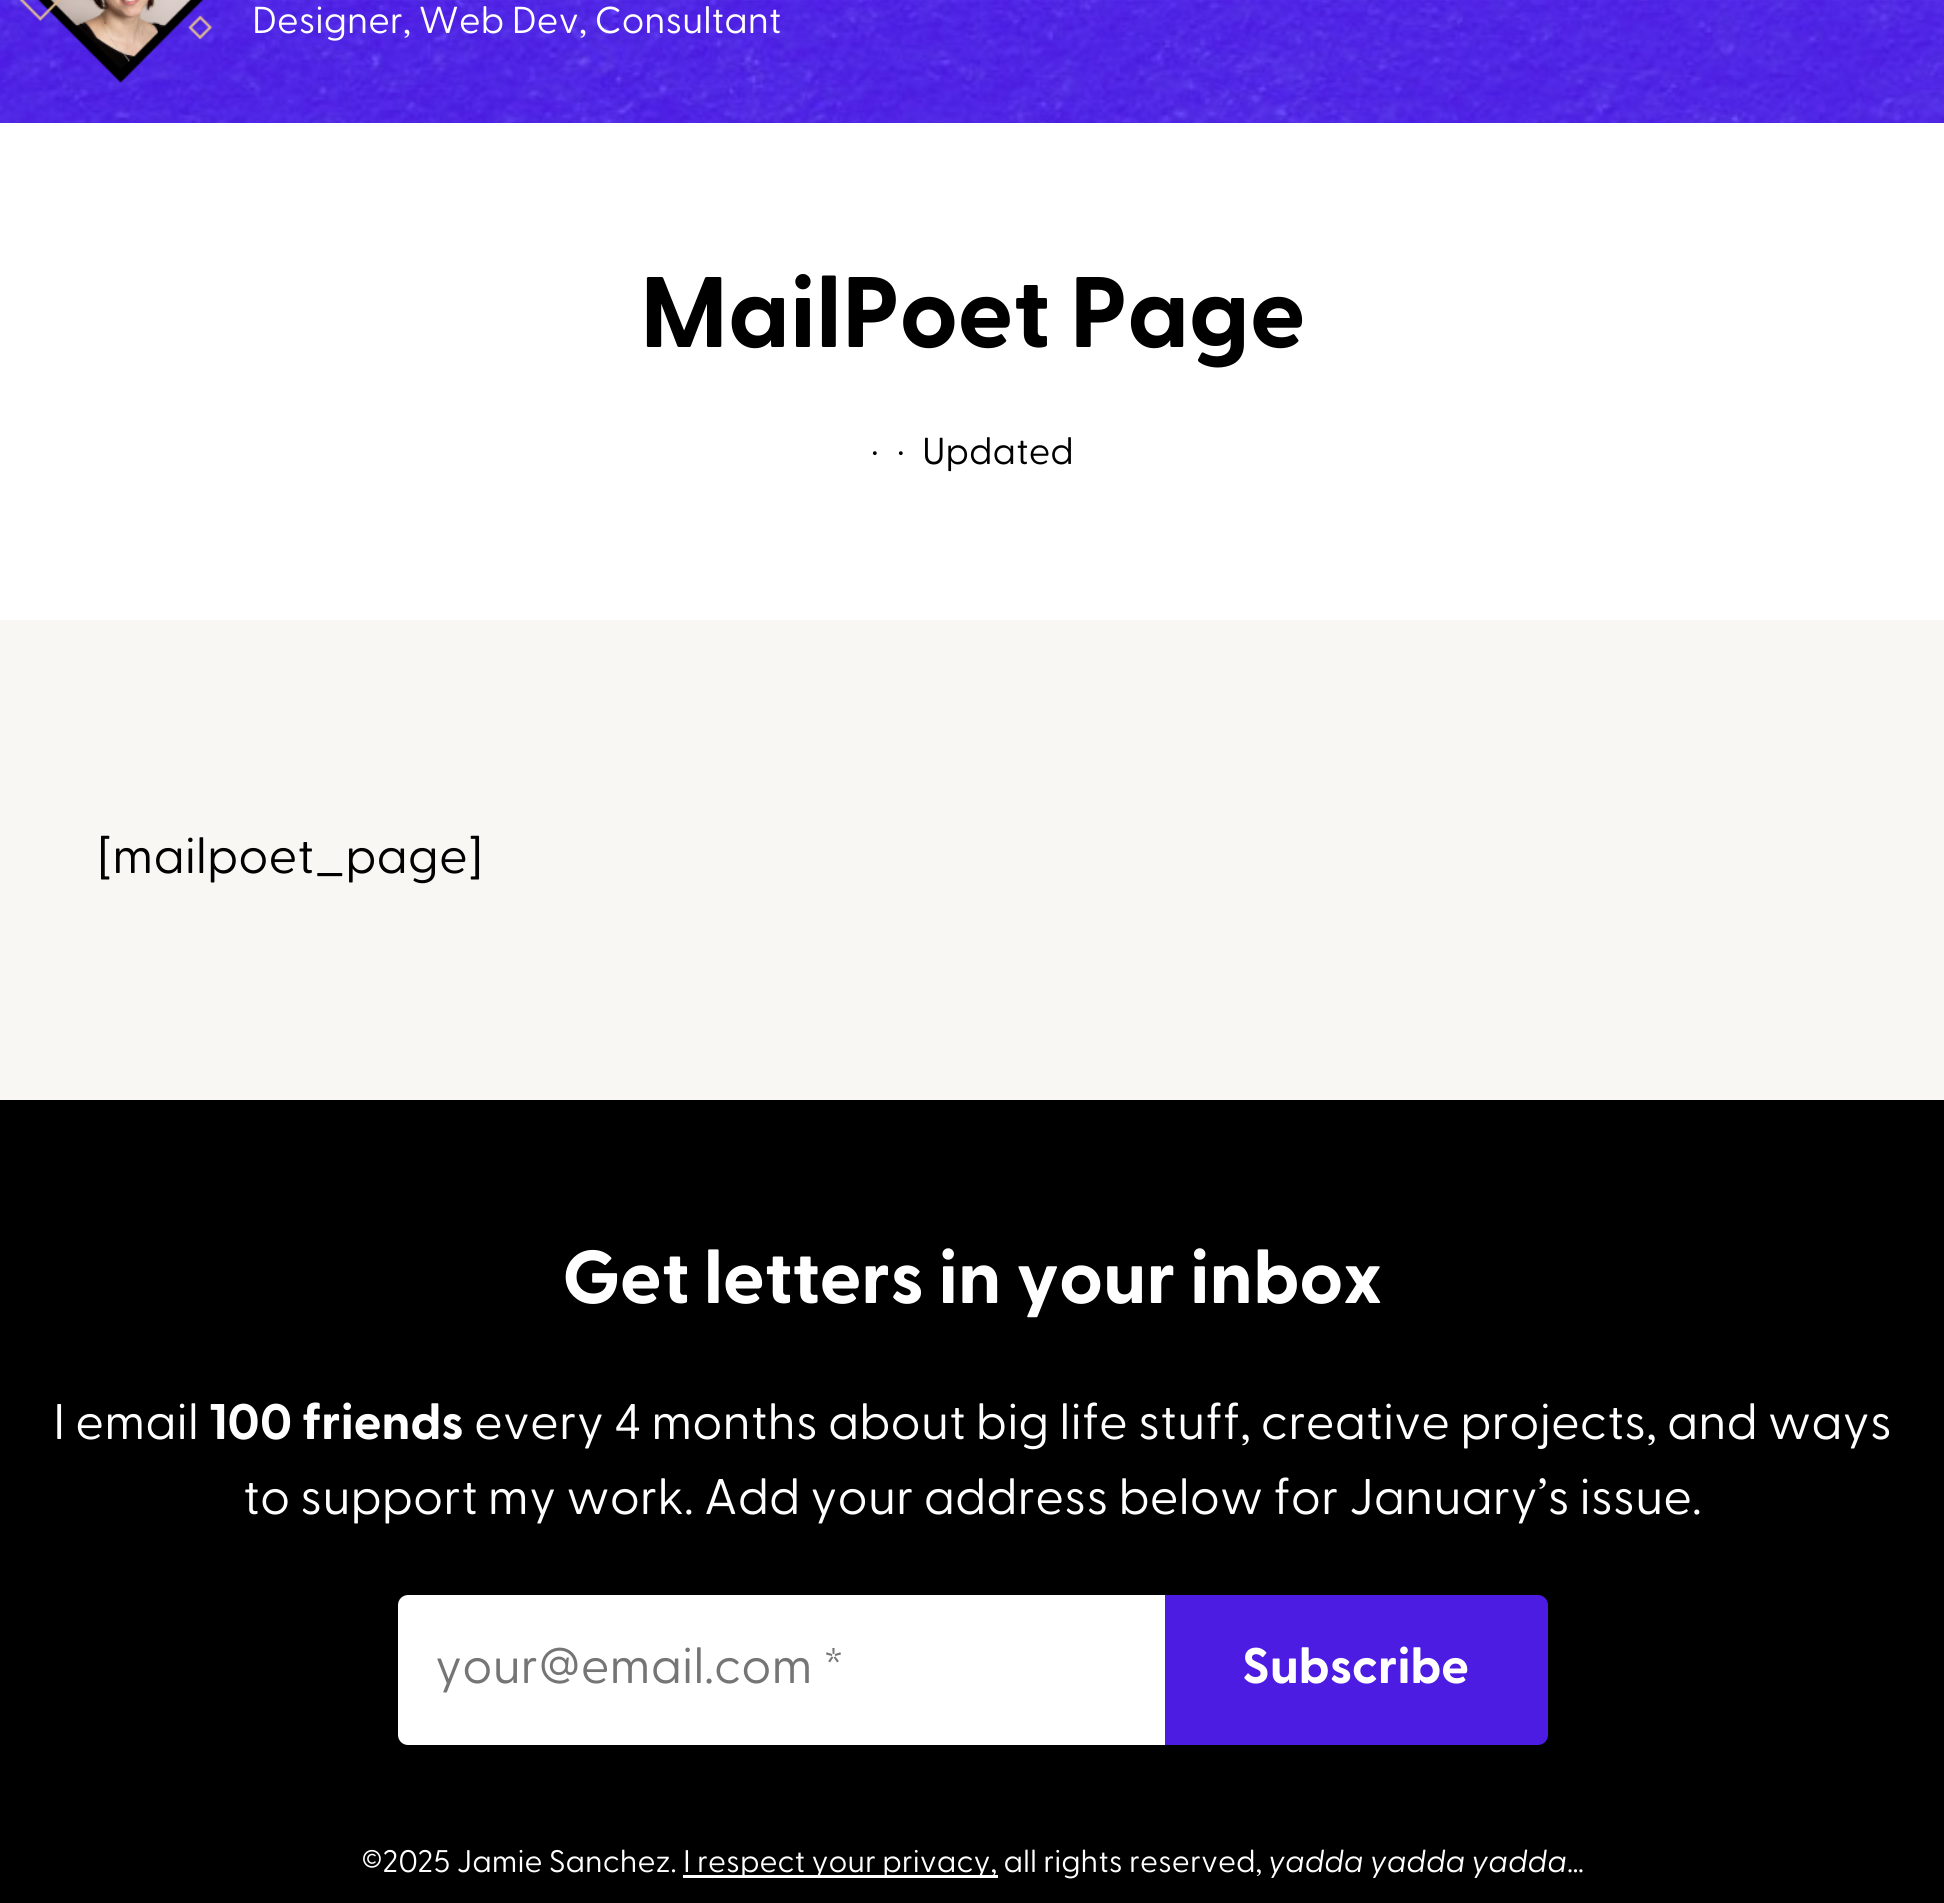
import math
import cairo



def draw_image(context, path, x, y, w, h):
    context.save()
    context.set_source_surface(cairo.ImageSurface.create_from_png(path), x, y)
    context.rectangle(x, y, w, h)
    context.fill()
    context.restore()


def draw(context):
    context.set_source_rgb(249 / 255, 247 / 255, 244 / 255)
    context.paint()
    draw_image(context, "images/1.png", 0, 0, 1944, 123)
    draw_image(context, "images/2.png", 19, 0, 194, 83)
    context.set_source_rgb(1, 1, 1)
    context.rectangle(0, 123, 1944, 497)
    context.fill()
    context.set_source_rgb(0, 0, 0)
    context.rectangle(0, 1100, 1944, 803)
    context.fill()
    context.set_source_rgb(1, 1, 1)
    context.new_path()
    context.move_to(408, 1595)
    context.line_to(1165, 1595)
    context.line_to(1165, 1745)
    context.line_to(408, 1745)
    context.curve_to(402.5, 1745, 398, 1740.5, 398, 1735)
    context.line_to(398, 1605)
    context.curve_to(398, 1599.5, 402.5, 1595, 408, 1595)
    context.close_path()
    context.fill()
    context.set_source_rgb(76 / 255, 28 / 255, 226 / 255)
    context.new_path()
    context.move_to(1165, 1595)
    context.line_to(1538, 1595)
    context.curve_to(1543.5, 1595, 1548, 1599.5, 1548, 1605)
    context.line_to(1548, 1735)
    context.curve_to(1548, 1740.5, 1543.5, 1745, 1538, 1745)
    context.line_to(1165, 1745)
    context.close_path()
    context.fill()
    context.set_source_rgb(1, 1, 1)
    context.rectangle(683, 1875, 315, 3)
    context.fill()
    context.select_font_face("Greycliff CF")
    context.set_font_size(37.5)
    context.move_to(252, 33)
    context.show_text("Designer, Web Dev, Consultant")
    context.select_font_face("Greycliff CF", cairo.FontSlant.NORMAL, cairo.FontWeight.BOLD)
    context.set_font_size(100)
    context.set_source_rgb(0, 0, 0)
    context.move_to(640, 347)
    context.show_text("MailPoet Page")
    context.select_font_face("Greycliff CF")
    context.set_font_size(37.5)
    context.move_to(871, 464)
    context.show_text("·")
    context.move_to(897, 464)
    context.show_text("·")
    context.move_to(922, 464)
    context.show_text("Updated")
    context.set_font_size(50)
    context.move_to(98, 873)
    context.show_text("[mailpoet_page]")
    context.select_font_face("Greycliff CF", cairo.FontSlant.NORMAL, cairo.FontWeight.BOLD)
    context.set_font_size(75)
    context.set_source_rgb(1, 1, 1)
    context.move_to(562, 1303)
    context.show_text("Get letters in your inbox")
    context.select_font_face("Greycliff CF")
    context.set_font_size(50)
    context.move_to(53, 1439)
    context.show_text("I email")
    context.select_font_face("Greycliff CF", cairo.FontSlant.NORMAL, cairo.FontWeight.BOLD)
    context.move_to(209, 1439)
    context.show_text("100 friends")
    context.select_font_face("Greycliff CF")
    context.move_to(474, 1439)
    context.show_text("every 4 months about big life stuff, creative projects, and ways")
    context.move_to(243, 1514)
    context.show_text("to support my work. Add your address below for January’s issue.")
    context.set_source_rgb(117 / 255, 117 / 255, 117 / 255)
    context.move_to(435, 1683)
    context.show_text("your@email.com *")
    context.select_font_face("Greycliff CF", cairo.FontSlant.NORMAL, cairo.FontWeight.BOLD)
    context.set_source_rgb(1, 1, 1)
    context.move_to(1242, 1683)
    context.show_text("Subscribe")
    context.select_font_face("Greycliff CF")
    context.set_font_size(31.25)
    context.move_to(361, 1872)
    context.show_text("©2025 Jamie Sanchez.")
    context.move_to(683, 1872)
    context.show_text("I respect your privacy, all rights reserved,")
    context.select_font_face("Greycliff CF", cairo.FontSlant.ITALIC)
    context.move_to(1268, 1872)
    context.show_text("yadda yadda yadda")
    context.select_font_face("Greycliff CF")
    context.move_to(1567, 1872)
    context.show_text("…")


surface = cairo.ImageSurface(cairo.Format.RGB24, 1944, 1903)
context = cairo.Context(surface)
options = cairo.FontOptions()
options.set_hint_metrics(cairo.HintMetrics.OFF)
options.set_hint_style(cairo.HintStyle.NONE)
context.set_font_options(options)
context.set_miter_limit(4)
draw(context)
surface.write_to_png("out.png")
